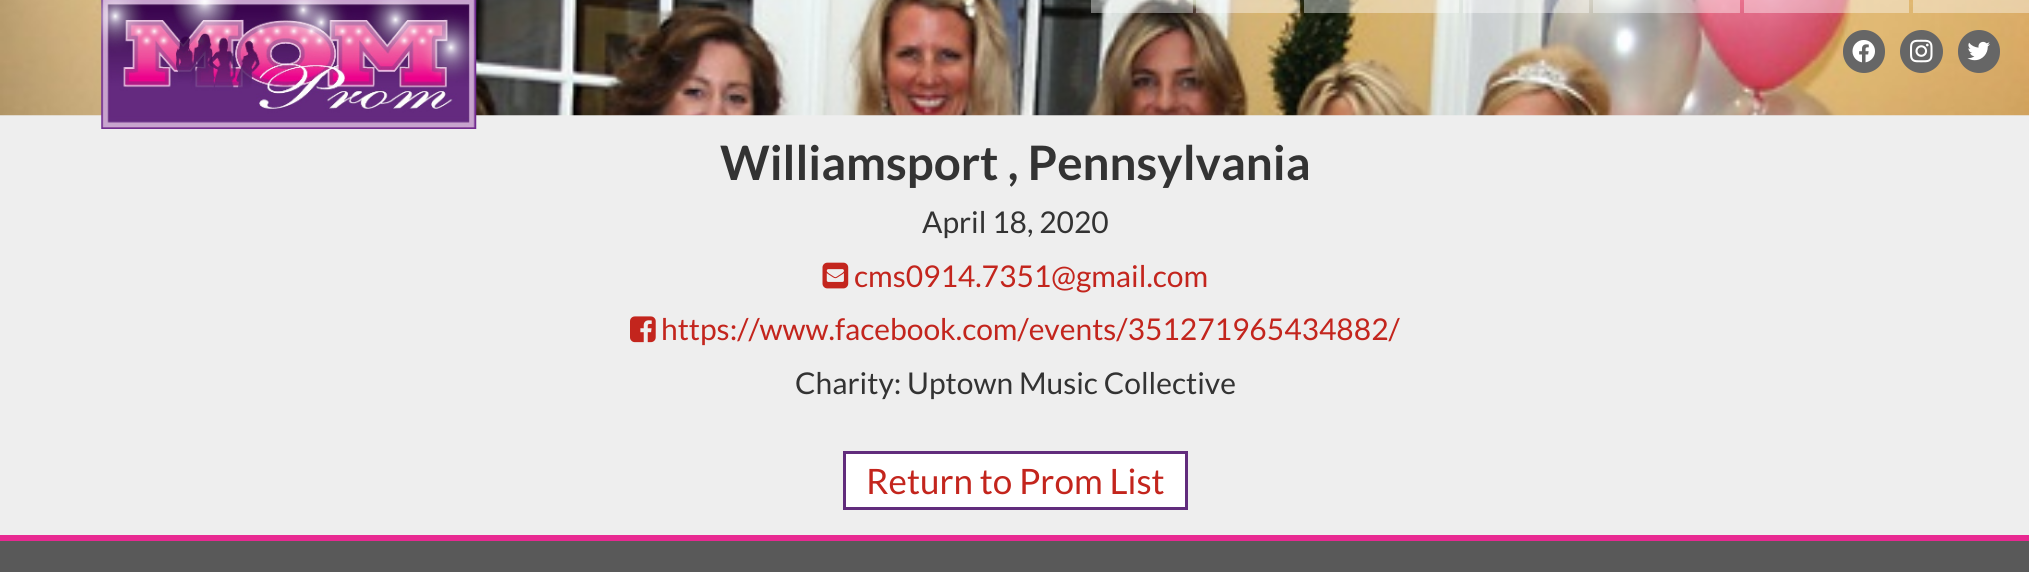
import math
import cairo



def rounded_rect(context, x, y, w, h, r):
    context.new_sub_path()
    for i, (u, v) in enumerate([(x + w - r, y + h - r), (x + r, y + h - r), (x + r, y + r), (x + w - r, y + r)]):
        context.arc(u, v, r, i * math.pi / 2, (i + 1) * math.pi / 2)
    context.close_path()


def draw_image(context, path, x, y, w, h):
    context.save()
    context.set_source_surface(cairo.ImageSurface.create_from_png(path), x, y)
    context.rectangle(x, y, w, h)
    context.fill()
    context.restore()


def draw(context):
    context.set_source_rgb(238 / 255, 238 / 255, 238 / 255)
    context.paint()
    draw_image(context, "images/1.png", 0, 0, 2029, 116)
    draw_image(context, "images/2.png", 101, 0, 376, 129)
    context.set_source_rgba(1, 1, 1, 0.4)
    context.rectangle(1091, 0, 102, 13)
    context.fill()
    context.rectangle(1196, 0, 104, 13)
    context.fill()
    context.rectangle(1304, 0, 155, 13)
    context.fill()
    context.rectangle(1463, 0, 126, 13)
    context.fill()
    context.rectangle(1593, 0, 147, 13)
    context.fill()
    context.rectangle(1744, 0, 165, 13)
    context.fill()
    context.rectangle(1913, 0, 116, 13)
    context.fill()
    context.set_source_rgb(102 / 255, 102 / 255, 102 / 255)
    rounded_rect(context, 1843, 30, 42, 43, 21)
    context.fill()
    draw_image(context, "images/3.png", 1852, 40, 23, 23)
    context.arc(1921.5, 51.5, 21.5, 0, 2 * math.pi)
    context.fill()
    draw_image(context, "images/4.png", 1910, 39, 23, 24)
    rounded_rect(context, 1958, 30, 42, 43, 21)
    context.fill()
    draw_image(context, "images/5.png", 1967, 41, 23, 20)
    draw_image(context, "images/6.png", 822, 262, 27, 27)
    draw_image(context, "images/7.png", 630, 316, 26, 27)
    context.set_source_rgb(1, 1, 1)
    context.rectangle(844.5, 452.5, 342, 56)
    context.fill_preserve()
    context.set_source_rgb(97 / 255, 44 / 255, 124 / 255)
    context.set_line_width(3)
    context.stroke()
    context.set_source_rgb(89 / 255, 89 / 255, 89 / 255)
    context.rectangle(0, 541, 2029, 31)
    context.fill()
    context.set_source_rgb(232 / 255, 41 / 255, 145 / 255)
    context.rectangle(0, 535, 2029, 6)
    context.fill()
    context.select_font_face("Lato", cairo.FontSlant.NORMAL, cairo.FontWeight.BOLD)
    context.set_font_size(47.5)
    context.set_source_rgb(51 / 255, 51 / 255, 51 / 255)
    context.move_to(720, 180)
    context.show_text("Williamsport , Pennsylvania")
    context.select_font_face("Lato")
    context.set_font_size(30)
    context.move_to(922, 233)
    context.show_text("April 18, 2020")
    context.set_source_rgb(195 / 255, 37 / 255, 29 / 255)
    context.move_to(854, 287)
    context.show_text("cms0914.7351@gmail.com")
    context.move_to(661, 340)
    context.show_text("https://www.facebook.com/events/351271965434882/")
    context.set_source_rgb(51 / 255, 51 / 255, 51 / 255)
    context.move_to(795, 394)
    context.show_text("Charity: Uptown Music Collective")
    context.set_font_size(35)
    context.set_source_rgb(195 / 255, 37 / 255, 29 / 255)
    context.move_to(866, 494)
    context.show_text("Return to Prom List")


surface = cairo.ImageSurface(cairo.Format.RGB24, 2029, 572)
context = cairo.Context(surface)
options = cairo.FontOptions()
options.set_hint_metrics(cairo.HintMetrics.OFF)
options.set_hint_style(cairo.HintStyle.NONE)
context.set_font_options(options)
context.set_miter_limit(4)
draw(context)
surface.write_to_png("out.png")
